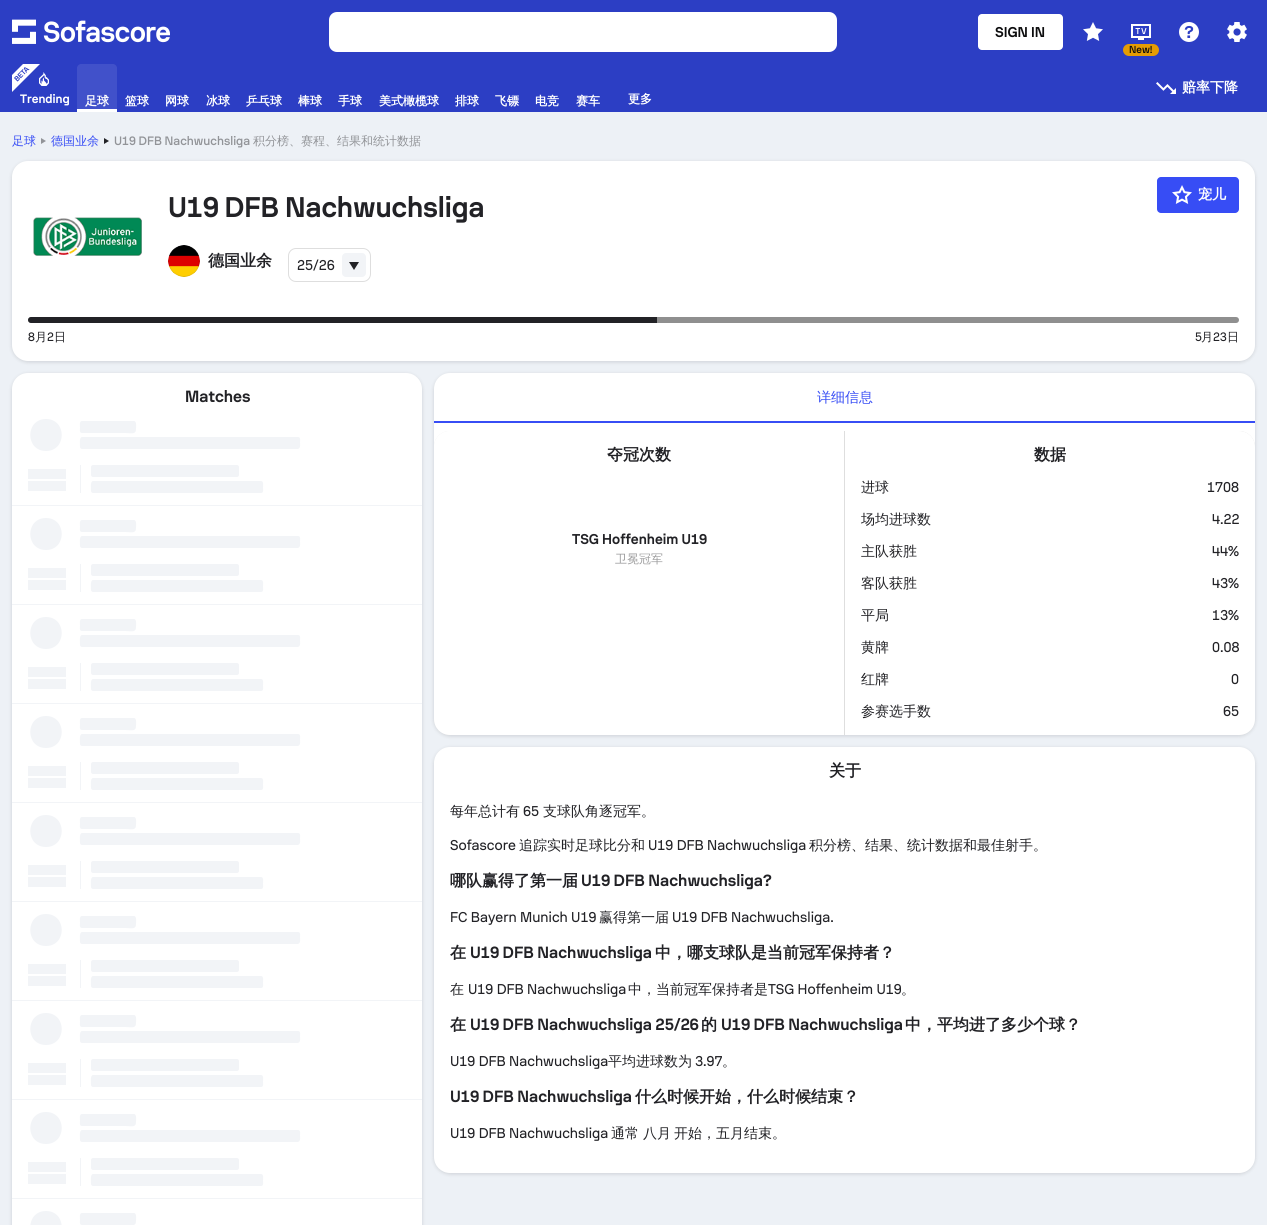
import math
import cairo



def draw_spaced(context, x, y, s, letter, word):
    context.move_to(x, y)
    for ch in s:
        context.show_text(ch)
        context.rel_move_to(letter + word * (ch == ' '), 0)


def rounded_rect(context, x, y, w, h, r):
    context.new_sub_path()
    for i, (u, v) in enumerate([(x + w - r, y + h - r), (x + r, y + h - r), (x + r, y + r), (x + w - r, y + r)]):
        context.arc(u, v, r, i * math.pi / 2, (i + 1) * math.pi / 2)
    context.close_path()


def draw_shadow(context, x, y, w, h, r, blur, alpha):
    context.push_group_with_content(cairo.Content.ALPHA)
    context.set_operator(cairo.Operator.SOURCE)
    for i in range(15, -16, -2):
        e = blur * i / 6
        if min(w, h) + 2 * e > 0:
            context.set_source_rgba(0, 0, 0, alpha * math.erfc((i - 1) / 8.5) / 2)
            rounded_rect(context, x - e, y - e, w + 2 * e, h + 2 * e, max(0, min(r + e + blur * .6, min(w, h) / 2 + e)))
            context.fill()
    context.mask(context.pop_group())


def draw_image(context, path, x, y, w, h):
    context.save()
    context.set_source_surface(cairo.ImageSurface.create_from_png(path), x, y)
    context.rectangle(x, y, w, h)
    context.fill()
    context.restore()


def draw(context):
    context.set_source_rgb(237 / 255, 241 / 255, 246 / 255)
    context.paint()
    context.set_source_rgb(44 / 255, 62 / 255, 196 / 255)
    context.rectangle(0, 0, 1267, 112)
    context.fill()
    draw_image(context, "images/1.png", 12, 19, 158, 25)
    context.set_source_rgb(1, 1, 1)
    rounded_rect(context, 329, 12, 508, 40, 8)
    context.fill()
    rounded_rect(context, 978, 14, 85, 36, 4)
    context.fill()
    draw_image(context, "images/2.png", 1083, 22, 20, 19)
    draw_image(context, "images/3.png", 1179, 22, 20, 20)
    draw_image(context, "images/4.png", 1227, 22, 20, 20)
    draw_image(context, "images/5.png", 1131, 24, 20, 16)
    context.set_source_rgb(229 / 255, 156 / 255, 3 / 255)
    rounded_rect(context, 1123, 44, 36, 12, 6)
    context.fill()
    draw_image(context, "images/6.png", 1156, 82, 20, 12)
    draw_image(context, "images/8.png", 39, 72, 10, 14)
    draw_image(context, "images/7.png", 12, 64, 28, 28)
    context.set_source_rgb(65 / 255, 81 / 255, 202 / 255)
    context.new_path()
    context.move_to(81, 64)
    context.line_to(113, 64)
    context.curve_to(115, 64, 117, 66, 117, 68)
    context.line_to(117, 112)
    context.line_to(77, 112)
    context.line_to(77, 68)
    context.curve_to(77, 66, 79, 64, 81, 64)
    context.close_path()
    context.fill()
    context.set_source_rgb(1, 1, 1)
    context.rectangle(77, 109, 40, 3)
    context.fill()
    context.set_source_rgb(146 / 255, 148 / 255, 152 / 255)
    context.new_path()
    context.move_to(41, 144)
    context.line_to(41, 138)
    context.line_to(46, 141)
    context.close_path()
    context.fill()
    context.set_source_rgb(34 / 255, 34 / 255, 38 / 255)
    context.new_path()
    context.move_to(104, 144)
    context.line_to(104, 138)
    context.line_to(109, 141)
    context.close_path()
    context.fill()
    context.set_source_rgb(34 / 255, 34 / 255, 38 / 255)
    draw_shadow(context, 12, 162, 1243, 200, 16, 2, 0.16)
    context.set_source_rgb(1, 1, 1)
    rounded_rect(context, 12, 161, 1243, 200, 16)
    context.fill()
    context.set_source_rgb(55 / 255, 77 / 255, 245 / 255)
    rounded_rect(context, 1157, 177, 82, 36, 4)
    context.fill()
    draw_image(context, "images/9.png", 1172, 185, 20, 19)
    draw_image(context, "images/10.png", 33, 217, 109, 39)
    draw_image(context, "images/11.png", 168, 245, 32, 32)
    rounded_rect(context, 288.5, 248.5, 82, 33, 7.5)
    context.set_source_rgb(222 / 255, 222 / 255, 222 / 255)
    context.set_line_width(1)
    context.stroke()
    context.set_source_rgb(242 / 255, 244 / 255, 247 / 255)
    rounded_rect(context, 342, 253, 24, 24, 4)
    context.fill()
    context.set_source_rgb(34 / 255, 34 / 255, 38 / 255)
    context.set_fill_rule(cairo.FillRule.EVEN_ODD)
    context.new_path()
    context.move_to(359, 262)
    context.line_to(349, 262)
    context.line_to(354, 270)
    context.close_path()
    context.fill()
    context.set_source_rgb(191 / 255, 191 / 255, 191 / 255)
    rounded_rect(context, 28, 317, 1211, 6, 3)
    context.fill()
    context.set_source_rgba(0, 0, 0, 0.25)
    rounded_rect(context, 28, 317, 1211, 6, 3)
    context.fill()
    context.set_source_rgb(34 / 255, 34 / 255, 38 / 255)
    context.new_path()
    context.move_to(31, 317)
    context.line_to(657, 317)
    context.line_to(657, 323)
    context.line_to(31, 323)
    context.curve_to(29.5, 323, 28, 321.5, 28, 320)
    context.curve_to(28, 318.5, 29.5, 317, 31, 317)
    context.close_path()
    context.fill()
    context.set_source_rgb(34 / 255, 34 / 255, 38 / 255)
    draw_shadow(context, 12, 374, 410, 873, 16, 2, 0.16)
    context.set_source_rgb(1, 1, 1)
    rounded_rect(context, 12, 373, 410, 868, 16)
    context.fill()
    context.set_source_rgb(242 / 255, 244 / 255, 247 / 255)
    context.new_path()
    context.move_to(12, 505)
    context.line_to(12, 506)
    context.line_to(422, 506)
    context.line_to(422, 505)
    context.close_path()
    context.move_to(12, 604)
    context.line_to(12, 605)
    context.line_to(422, 605)
    context.line_to(422, 604)
    context.close_path()
    context.move_to(12, 703)
    context.line_to(12, 704)
    context.line_to(422, 704)
    context.line_to(422, 703)
    context.close_path()
    context.move_to(12, 802)
    context.line_to(12, 803)
    context.line_to(422, 803)
    context.line_to(422, 802)
    context.close_path()
    context.move_to(12, 901)
    context.line_to(12, 902)
    context.line_to(422, 902)
    context.line_to(422, 901)
    context.close_path()
    context.move_to(12, 1000)
    context.line_to(12, 1001)
    context.line_to(422, 1001)
    context.line_to(422, 1000)
    context.close_path()
    context.move_to(12, 1099)
    context.line_to(12, 1100)
    context.line_to(422, 1100)
    context.line_to(422, 1099)
    context.close_path()
    context.move_to(12, 1198)
    context.line_to(12, 1199)
    context.line_to(422, 1199)
    context.line_to(422, 1198)
    context.close_path()
    context.move_to(12, 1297)
    context.line_to(12, 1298)
    context.line_to(422, 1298)
    context.line_to(422, 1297)
    context.close_path()
    context.move_to(12, 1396)
    context.line_to(12, 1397)
    context.line_to(422, 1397)
    context.line_to(422, 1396)
    context.close_path()
    context.move_to(12, 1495)
    context.line_to(12, 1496)
    context.line_to(422, 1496)
    context.line_to(422, 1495)
    context.close_path()
    context.move_to(93, 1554)
    context.curve_to(90, 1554, 91, 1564, 91, 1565)
    context.line_to(239, 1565)
    context.curve_to(239, 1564, 240, 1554, 237, 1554)
    context.close_path()
    context.move_to(80, 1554)
    context.line_to(80, 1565)
    context.line_to(81, 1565)
    context.line_to(81, 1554)
    context.close_path()
    context.move_to(28, 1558)
    context.line_to(28, 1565)
    context.line_to(66, 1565)
    context.line_to(66, 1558)
    context.close_path()
    context.move_to(46, 419)
    context.curve_to(25, 419, 25, 451, 46, 451)
    context.curve_to(67, 451, 67, 419, 46, 419)
    context.close_path()
    context.move_to(82, 421)
    context.curve_to(79, 421, 80, 426, 80, 428)
    context.curve_to(80, 429, 79, 433, 82, 433)
    context.line_to(125, 433)
    context.curve_to(131, 433, 136, 435, 136, 429)
    context.curve_to(136, 428, 137, 421, 134, 421)
    context.close_path()
    context.move_to(82, 437)
    context.curve_to(79, 437, 80, 445, 80, 447)
    context.curve_to(80, 448, 81, 449, 82, 449)
    context.line_to(298, 449)
    context.curve_to(301, 448, 300, 444, 300, 442)
    context.curve_to(300, 441, 301, 437, 298, 437)
    context.close_path()
    context.move_to(80, 465)
    context.line_to(80, 493)
    context.line_to(81, 493)
    context.line_to(81, 465)
    context.close_path()
    context.move_to(93, 465)
    context.curve_to(92, 465, 91, 466, 91, 467)
    context.line_to(91, 475)
    context.curve_to(91, 476, 92, 477, 93, 477)
    context.line_to(237, 477)
    context.curve_to(238, 477, 239, 476, 239, 475)
    context.line_to(239, 467)
    context.curve_to(239, 466, 238, 465, 237, 465)
    context.close_path()
    context.move_to(28, 469)
    context.line_to(28, 479)
    context.line_to(66, 479)
    context.line_to(66, 469)
    context.close_path()
    context.move_to(28, 481)
    context.line_to(28, 491)
    context.line_to(66, 491)
    context.line_to(66, 481)
    context.close_path()
    context.move_to(93, 481)
    context.curve_to(90, 481, 91, 489, 91, 491)
    context.curve_to(91, 492, 92, 493, 93, 493)
    context.line_to(261, 493)
    context.curve_to(264, 493, 263, 489, 263, 488)
    context.curve_to(263, 486, 264, 481, 261, 481)
    context.close_path()
    context.move_to(46, 518)
    context.curve_to(25, 518, 25, 550, 46, 550)
    context.curve_to(67, 550, 67, 518, 46, 518)
    context.close_path()
    context.move_to(82, 520)
    context.curve_to(79, 520, 80, 525, 80, 527)
    context.curve_to(80, 528, 79, 532, 82, 532)
    context.line_to(125, 532)
    context.curve_to(131, 532, 136, 534, 136, 528)
    context.curve_to(136, 527, 137, 520, 134, 520)
    context.close_path()
    context.move_to(82, 536)
    context.curve_to(79, 536, 80, 544, 80, 546)
    context.curve_to(80, 547, 81, 548, 82, 548)
    context.line_to(298, 548)
    context.curve_to(301, 547, 300, 543, 300, 541)
    context.curve_to(300, 540, 301, 536, 298, 536)
    context.close_path()
    context.move_to(80, 564)
    context.line_to(80, 592)
    context.line_to(81, 592)
    context.line_to(81, 564)
    context.close_path()
    context.move_to(93, 564)
    context.curve_to(92, 564, 91, 565, 91, 566)
    context.line_to(91, 574)
    context.curve_to(91, 575, 92, 576, 93, 576)
    context.line_to(237, 576)
    context.curve_to(238, 576, 239, 575, 239, 574)
    context.line_to(239, 566)
    context.curve_to(239, 565, 238, 564, 237, 564)
    context.close_path()
    context.move_to(28, 568)
    context.line_to(28, 578)
    context.line_to(66, 578)
    context.line_to(66, 568)
    context.close_path()
    context.move_to(28, 580)
    context.line_to(28, 590)
    context.line_to(66, 590)
    context.line_to(66, 580)
    context.close_path()
    context.move_to(93, 580)
    context.curve_to(90, 580, 91, 588, 91, 590)
    context.curve_to(91, 591, 92, 592, 93, 592)
    context.line_to(261, 592)
    context.curve_to(264, 592, 263, 588, 263, 587)
    context.curve_to(263, 585, 264, 580, 261, 580)
    context.close_path()
    context.move_to(46, 617)
    context.curve_to(25, 617, 25, 649, 46, 649)
    context.curve_to(67, 649, 67, 617, 46, 617)
    context.close_path()
    context.move_to(82, 619)
    context.curve_to(79, 619, 80, 624, 80, 626)
    context.curve_to(80, 627, 79, 631, 82, 631)
    context.line_to(125, 631)
    context.curve_to(131, 631, 136, 633, 136, 627)
    context.curve_to(136, 626, 137, 619, 134, 619)
    context.close_path()
    context.move_to(82, 635)
    context.curve_to(79, 635, 80, 643, 80, 645)
    context.curve_to(80, 646, 81, 647, 82, 647)
    context.line_to(298, 647)
    context.curve_to(301, 646, 300, 642, 300, 640)
    context.curve_to(300, 639, 301, 635, 298, 635)
    context.close_path()
    context.move_to(80, 663)
    context.line_to(80, 691)
    context.line_to(81, 691)
    context.line_to(81, 663)
    context.close_path()
    context.move_to(93, 663)
    context.curve_to(92, 663, 91, 664, 91, 665)
    context.line_to(91, 673)
    context.curve_to(91, 674, 92, 675, 93, 675)
    context.line_to(237, 675)
    context.curve_to(238, 675, 239, 674, 239, 673)
    context.line_to(239, 665)
    context.curve_to(239, 664, 238, 663, 237, 663)
    context.close_path()
    context.move_to(28, 667)
    context.line_to(28, 677)
    context.line_to(66, 677)
    context.line_to(66, 667)
    context.close_path()
    context.move_to(28, 679)
    context.line_to(28, 689)
    context.line_to(66, 689)
    context.line_to(66, 679)
    context.close_path()
    context.move_to(93, 679)
    context.curve_to(90, 679, 91, 687, 91, 689)
    context.curve_to(91, 690, 92, 691, 93, 691)
    context.line_to(261, 691)
    context.curve_to(264, 691, 263, 687, 263, 686)
    context.curve_to(263, 684, 264, 679, 261, 679)
    context.close_path()
    context.move_to(46, 716)
    context.curve_to(25, 716, 25, 748, 46, 748)
    context.curve_to(67, 748, 67, 716, 46, 716)
    context.close_path()
    context.move_to(82, 718)
    context.curve_to(79, 718, 80, 723, 80, 725)
    context.curve_to(80, 726, 79, 730, 82, 730)
    context.line_to(125, 730)
    context.curve_to(131, 730, 136, 732, 136, 726)
    context.curve_to(136, 725, 137, 718, 134, 718)
    context.close_path()
    context.move_to(82, 734)
    context.curve_to(79, 734, 80, 742, 80, 744)
    context.curve_to(80, 745, 81, 746, 82, 746)
    context.line_to(298, 746)
    context.curve_to(301, 745, 300, 741, 300, 739)
    context.curve_to(300, 738, 301, 734, 298, 734)
    context.close_path()
    context.move_to(80, 762)
    context.line_to(80, 790)
    context.line_to(81, 790)
    context.line_to(81, 762)
    context.close_path()
    context.move_to(93, 762)
    context.curve_to(92, 762, 91, 763, 91, 764)
    context.line_to(91, 772)
    context.curve_to(91, 773, 92, 774, 93, 774)
    context.line_to(237, 774)
    context.curve_to(238, 774, 239, 773, 239, 772)
    context.line_to(239, 764)
    context.curve_to(239, 763, 238, 762, 237, 762)
    context.close_path()
    context.move_to(28, 766)
    context.line_to(28, 776)
    context.line_to(66, 776)
    context.line_to(66, 766)
    context.close_path()
    context.move_to(28, 778)
    context.line_to(28, 788)
    context.line_to(66, 788)
    context.line_to(66, 778)
    context.close_path()
    context.move_to(93, 778)
    context.curve_to(90, 778, 91, 786, 91, 788)
    context.curve_to(91, 789, 92, 790, 93, 790)
    context.line_to(261, 790)
    context.curve_to(264, 790, 263, 786, 263, 785)
    context.curve_to(263, 783, 264, 778, 261, 778)
    context.close_path()
    context.move_to(46, 815)
    context.curve_to(25, 815, 25, 847, 46, 847)
    context.curve_to(67, 847, 67, 815, 46, 815)
    context.close_path()
    context.move_to(82, 817)
    context.curve_to(79, 817, 80, 822, 80, 824)
    context.curve_to(80, 825, 79, 829, 82, 829)
    context.line_to(125, 829)
    context.curve_to(131, 829, 136, 831, 136, 825)
    context.curve_to(136, 824, 137, 817, 134, 817)
    context.close_path()
    context.move_to(82, 833)
    context.curve_to(79, 833, 80, 841, 80, 843)
    context.curve_to(80, 844, 81, 845, 82, 845)
    context.line_to(298, 845)
    context.curve_to(301, 844, 300, 840, 300, 838)
    context.curve_to(300, 837, 301, 833, 298, 833)
    context.close_path()
    context.move_to(80, 861)
    context.line_to(80, 889)
    context.line_to(81, 889)
    context.line_to(81, 861)
    context.close_path()
    context.move_to(93, 861)
    context.curve_to(92, 861, 91, 862, 91, 863)
    context.line_to(91, 871)
    context.curve_to(91, 872, 92, 873, 93, 873)
    context.line_to(237, 873)
    context.curve_to(238, 873, 239, 872, 239, 871)
    context.line_to(239, 863)
    context.curve_to(239, 862, 238, 861, 237, 861)
    context.close_path()
    context.move_to(28, 865)
    context.line_to(28, 875)
    context.line_to(66, 875)
    context.line_to(66, 865)
    context.close_path()
    context.move_to(28, 877)
    context.line_to(28, 887)
    context.line_to(66, 887)
    context.line_to(66, 877)
    context.close_path()
    context.move_to(93, 877)
    context.curve_to(90, 877, 91, 885, 91, 887)
    context.curve_to(91, 888, 92, 889, 93, 889)
    context.line_to(261, 889)
    context.curve_to(264, 889, 263, 885, 263, 884)
    context.curve_to(263, 882, 264, 877, 261, 877)
    context.close_path()
    context.move_to(46, 914)
    context.curve_to(25, 914, 25, 946, 46, 946)
    context.curve_to(67, 946, 67, 914, 46, 914)
    context.close_path()
    context.move_to(82, 916)
    context.curve_to(79, 916, 80, 921, 80, 923)
    context.curve_to(80, 924, 79, 928, 82, 928)
    context.line_to(125, 928)
    context.curve_to(131, 928, 136, 930, 136, 924)
    context.curve_to(136, 923, 137, 916, 134, 916)
    context.close_path()
    context.move_to(82, 932)
    context.curve_to(79, 932, 80, 940, 80, 942)
    context.curve_to(80, 943, 81, 944, 82, 944)
    context.line_to(298, 944)
    context.curve_to(301, 943, 300, 939, 300, 937)
    context.curve_to(300, 936, 301, 932, 298, 932)
    context.close_path()
    context.move_to(80, 960)
    context.line_to(80, 988)
    context.line_to(81, 988)
    context.line_to(81, 960)
    context.close_path()
    context.move_to(93, 960)
    context.curve_to(92, 960, 91, 961, 91, 962)
    context.line_to(91, 970)
    context.curve_to(91, 971, 92, 972, 93, 972)
    context.line_to(237, 972)
    context.curve_to(238, 972, 239, 971, 239, 970)
    context.line_to(239, 962)
    context.curve_to(239, 961, 238, 960, 237, 960)
    context.close_path()
    context.move_to(28, 964)
    context.line_to(28, 974)
    context.line_to(66, 974)
    context.line_to(66, 964)
    context.close_path()
    context.move_to(28, 976)
    context.line_to(28, 986)
    context.line_to(66, 986)
    context.line_to(66, 976)
    context.close_path()
    context.move_to(93, 976)
    context.curve_to(90, 976, 91, 984, 91, 986)
    context.curve_to(91, 987, 92, 988, 93, 988)
    context.line_to(261, 988)
    context.curve_to(264, 988, 263, 984, 263, 983)
    context.curve_to(263, 981, 264, 976, 261, 976)
    context.close_path()
    context.move_to(46, 1013)
    context.curve_to(25, 1013, 25, 1045, 46, 1045)
    context.curve_to(67, 1045, 67, 1013, 46, 1013)
    context.close_path()
    context.move_to(82, 1015)
    context.curve_to(79, 1015, 80, 1020, 80, 1022)
    context.curve_to(80, 1023, 79, 1027, 82, 1027)
    context.line_to(125, 1027)
    context.curve_to(131, 1027, 136, 1029, 136, 1023)
    context.curve_to(136, 1022, 137, 1015, 134, 1015)
    context.close_path()
    context.move_to(82, 1031)
    context.curve_to(79, 1031, 80, 1039, 80, 1041)
    context.curve_to(80, 1042, 81, 1043, 82, 1043)
    context.line_to(298, 1043)
    context.curve_to(301, 1042, 300, 1038, 300, 1036)
    context.curve_to(300, 1035, 301, 1031, 298, 1031)
    context.close_path()
    context.move_to(80, 1059)
    context.line_to(80, 1087)
    context.line_to(81, 1087)
    context.line_to(81, 1059)
    context.close_path()
    context.move_to(93, 1059)
    context.curve_to(92, 1059, 91, 1060, 91, 1061)
    context.line_to(91, 1069)
    context.curve_to(91, 1070, 92, 1071, 93, 1071)
    context.line_to(237, 1071)
    context.curve_to(238, 1071, 239, 1070, 239, 1069)
    context.line_to(239, 1061)
    context.curve_to(239, 1060, 238, 1059, 237, 1059)
    context.close_path()
    context.move_to(28, 1063)
    context.line_to(28, 1073)
    context.line_to(66, 1073)
    context.line_to(66, 1063)
    context.close_path()
    context.move_to(28, 1075)
    context.line_to(28, 1085)
    context.line_to(66, 1085)
    context.line_to(66, 1075)
    context.close_path()
    context.move_to(93, 1075)
    context.curve_to(90, 1075, 91, 1083, 91, 1085)
    context.curve_to(91, 1086, 92, 1087, 93, 1087)
    context.line_to(261, 1087)
    context.curve_to(264, 1087, 263, 1083, 263, 1082)
    context.curve_to(263, 1080, 264, 1075, 261, 1075)
    context.close_path()
    context.move_to(46, 1112)
    context.curve_to(25, 1112, 25, 1144, 46, 1144)
    context.curve_to(67, 1144, 67, 1112, 46, 1112)
    context.close_path()
    context.move_to(82, 1114)
    context.curve_to(79, 1114, 80, 1119, 80, 1121)
    context.curve_to(80, 1122, 79, 1126, 82, 1126)
    context.line_to(125, 1126)
    context.curve_to(131, 1126, 136, 1128, 136, 1122)
    context.curve_to(136, 1121, 137, 1114, 134, 1114)
    context.close_path()
    context.move_to(82, 1130)
    context.curve_to(79, 1130, 80, 1138, 80, 1140)
    context.curve_to(80, 1141, 81, 1142, 82, 1142)
    context.line_to(298, 1142)
    context.curve_to(301, 1141, 300, 1137, 300, 1135)
    context.curve_to(300, 1134, 301, 1130, 298, 1130)
    context.close_path()
    context.move_to(80, 1158)
    context.line_to(80, 1186)
    context.line_to(81, 1186)
    context.line_to(81, 1158)
    context.close_path()
    context.move_to(93, 1158)
    context.curve_to(92, 1158, 91, 1159, 91, 1160)
    context.line_to(91, 1168)
    context.curve_to(91, 1169, 92, 1170, 93, 1170)
    context.line_to(237, 1170)
    context.curve_to(238, 1170, 239, 1169, 239, 1168)
    context.line_to(239, 1160)
    context.curve_to(239, 1159, 238, 1158, 237, 1158)
    context.close_path()
    context.move_to(28, 1162)
    context.line_to(28, 1172)
    context.line_to(66, 1172)
    context.line_to(66, 1162)
    context.close_path()
    context.move_to(28, 1174)
    context.line_to(28, 1184)
    context.line_to(66, 1184)
    context.line_to(66, 1174)
    context.close_path()
    context.move_to(93, 1174)
    context.curve_to(90, 1174, 91, 1182, 91, 1184)
    context.curve_to(91, 1185, 92, 1186, 93, 1186)
    context.line_to(261, 1186)
    context.curve_to(264, 1186, 263, 1182, 263, 1181)
    context.curve_to(263, 1179, 264, 1174, 261, 1174)
    context.close_path()
    context.move_to(46, 1211)
    context.curve_to(25, 1211, 25, 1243, 46, 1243)
    context.curve_to(67, 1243, 67, 1211, 46, 1211)
    context.close_path()
    context.move_to(82, 1213)
    context.curve_to(79, 1213, 80, 1218, 80, 1220)
    context.curve_to(80, 1221, 79, 1225, 82, 1225)
    context.line_to(125, 1225)
    context.curve_to(131, 1225, 136, 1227, 136, 1221)
    context.curve_to(136, 1220, 137, 1213, 134, 1213)
    context.close_path()
    context.move_to(82, 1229)
    context.curve_to(79, 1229, 80, 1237, 80, 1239)
    context.curve_to(80, 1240, 81, 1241, 82, 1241)
    context.line_to(298, 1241)
    context.curve_to(301, 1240, 300, 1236, 300, 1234)
    context.curve_to(300, 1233, 301, 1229, 298, 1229)
    context.close_path()
    context.move_to(80, 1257)
    context.line_to(80, 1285)
    context.line_to(81, 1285)
    context.line_to(81, 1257)
    context.close_path()
    context.move_to(93, 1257)
    context.curve_to(92, 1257, 91, 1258, 91, 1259)
    context.line_to(91, 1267)
    context.curve_to(91, 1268, 92, 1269, 93, 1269)
    context.line_to(237, 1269)
    context.curve_to(238, 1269, 239, 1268, 239, 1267)
    context.line_to(239, 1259)
    context.curve_to(239, 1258, 238, 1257, 237, 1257)
    context.close_path()
    context.move_to(28, 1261)
    context.line_to(28, 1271)
    context.line_to(66, 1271)
    context.line_to(66, 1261)
    context.close_path()
    context.move_to(28, 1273)
    context.line_to(28, 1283)
    context.line_to(66, 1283)
    context.line_to(66, 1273)
    context.close_path()
    context.move_to(93, 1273)
    context.curve_to(90, 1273, 91, 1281, 91, 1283)
    context.curve_to(91, 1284, 92, 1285, 93, 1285)
    context.line_to(261, 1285)
    context.curve_to(264, 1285, 263, 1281, 263, 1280)
    context.curve_to(263, 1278, 264, 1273, 261, 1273)
    context.close_path()
    context.move_to(46, 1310)
    context.curve_to(25, 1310, 25, 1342, 46, 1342)
    context.curve_to(67, 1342, 67, 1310, 46, 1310)
    context.close_path()
    context.move_to(82, 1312)
    context.curve_to(79, 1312, 80, 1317, 80, 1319)
    context.curve_to(80, 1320, 79, 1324, 82, 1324)
    context.line_to(125, 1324)
    context.curve_to(131, 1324, 136, 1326, 136, 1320)
    context.curve_to(136, 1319, 137, 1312, 134, 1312)
    context.close_path()
    context.move_to(82, 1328)
    context.curve_to(79, 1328, 80, 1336, 80, 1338)
    context.curve_to(80, 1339, 81, 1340, 82, 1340)
    context.line_to(298, 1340)
    context.curve_to(301, 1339, 300, 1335, 300, 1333)
    context.curve_to(300, 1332, 301, 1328, 298, 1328)
    context.close_path()
    context.move_to(80, 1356)
    context.line_to(80, 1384)
    context.line_to(81, 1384)
    context.line_to(81, 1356)
    context.close_path()
    context.move_to(93, 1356)
    context.curve_to(92, 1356, 91, 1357, 91, 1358)
    context.line_to(91, 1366)
    context.curve_to(91, 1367, 92, 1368, 93, 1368)
    context.line_to(237, 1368)
    context.curve_to(238, 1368, 239, 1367, 239, 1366)
    context.line_to(239, 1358)
    context.curve_to(239, 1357, 238, 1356, 237, 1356)
    context.close_path()
    context.move_to(28, 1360)
    context.line_to(28, 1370)
    context.line_to(66, 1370)
    context.line_to(66, 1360)
    context.close_path()
    context.move_to(28, 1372)
    context.line_to(28, 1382)
    context.line_to(66, 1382)
    context.line_to(66, 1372)
    context.close_path()
    context.move_to(93, 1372)
    context.curve_to(90, 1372, 91, 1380, 91, 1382)
    context.curve_to(91, 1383, 92, 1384, 93, 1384)
    context.line_to(261, 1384)
    context.curve_to(264, 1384, 263, 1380, 263, 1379)
    context.curve_to(263, 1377, 264, 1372, 261, 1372)
    context.close_path()
    context.move_to(46, 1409)
    context.curve_to(25, 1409, 25, 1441, 46, 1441)
    context.curve_to(67, 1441, 67, 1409, 46, 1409)
    context.close_path()
    context.move_to(82, 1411)
    context.curve_to(79, 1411, 80, 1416, 80, 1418)
    context.curve_to(80, 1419, 79, 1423, 82, 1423)
    context.line_to(125, 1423)
    context.curve_to(131, 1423, 136, 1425, 136, 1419)
    context.curve_to(136, 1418, 137, 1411, 134, 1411)
    context.close_path()
    context.move_to(82, 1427)
    context.curve_to(79, 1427, 80, 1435, 80, 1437)
    context.curve_to(80, 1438, 81, 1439, 82, 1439)
    context.line_to(298, 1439)
    context.curve_to(301, 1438, 300, 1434, 300, 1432)
    context.curve_to(300, 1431, 301, 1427, 298, 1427)
    context.close_path()
    context.move_to(80, 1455)
    context.line_to(80, 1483)
    context.line_to(81, 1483)
    context.line_to(81, 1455)
    context.close_path()
    context.move_to(93, 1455)
    context.curve_to(92, 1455, 91, 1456, 91, 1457)
    context.line_to(91, 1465)
    context.curve_to(91, 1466, 92, 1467, 93, 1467)
    context.line_to(237, 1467)
    context.curve_to(238, 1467, 239, 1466, 239, 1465)
    context.line_to(239, 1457)
    context.curve_to(239, 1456, 238, 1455, 237, 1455)
    context.close_path()
    context.move_to(28, 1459)
    context.line_to(28, 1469)
    context.line_to(66, 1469)
    context.line_to(66, 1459)
    context.close_path()
    context.move_to(28, 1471)
    context.line_to(28, 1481)
    context.line_to(66, 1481)
    context.line_to(66, 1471)
    context.close_path()
    context.move_to(93, 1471)
    context.curve_to(90, 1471, 91, 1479, 91, 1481)
    context.curve_to(91, 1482, 92, 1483, 93, 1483)
    context.line_to(261, 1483)
    context.curve_to(264, 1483, 263, 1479, 263, 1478)
    context.curve_to(263, 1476, 264, 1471, 261, 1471)
    context.close_path()
    context.move_to(46, 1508)
    context.curve_to(25, 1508, 25, 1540, 46, 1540)
    context.curve_to(67, 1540, 67, 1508, 46, 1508)
    context.close_path()
    context.move_to(82, 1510)
    context.curve_to(79, 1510, 80, 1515, 80, 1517)
    context.curve_to(80, 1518, 79, 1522, 82, 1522)
    context.line_to(125, 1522)
    context.curve_to(131, 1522, 136, 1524, 136, 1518)
    context.curve_to(136, 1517, 137, 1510, 134, 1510)
    context.close_path()
    context.move_to(82, 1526)
    context.curve_to(79, 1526, 80, 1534, 80, 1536)
    context.curve_to(80, 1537, 81, 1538, 82, 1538)
    context.line_to(298, 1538)
    context.curve_to(301, 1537, 300, 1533, 300, 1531)
    context.curve_to(300, 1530, 301, 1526, 298, 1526)
    context.close_path()
    context.fill()
    context.set_source_rgb(34 / 255, 34 / 255, 38 / 255)
    draw_shadow(context, 434, 374, 821, 362, 16, 2, 0.16)
    context.set_source_rgb(1, 1, 1)
    rounded_rect(context, 434, 373, 821, 362, 16)
    context.fill()
    context.set_source_rgb(55 / 255, 77 / 255, 245 / 255)
    context.rectangle(434, 421, 821, 2)
    context.fill()
    context.set_source_rgba(34 / 255, 34 / 255, 38 / 255, 0.15)
    rounded_rect(context, 434, 431, 821, 304, 16)
    context.fill()
    context.set_source_rgb(1, 1, 1)
    context.new_path()
    context.move_to(450, 431)
    context.line_to(844, 431)
    context.line_to(844, 735)
    context.line_to(450, 735)
    context.curve_to(441, 735, 434, 728, 434, 719)
    context.line_to(434, 447)
    context.curve_to(434, 438, 441, 431, 450, 431)
    context.close_path()
    context.fill()
    context.new_path()
    context.move_to(450, 431)
    context.line_to(844, 431)
    context.line_to(844, 591)
    context.line_to(434, 591)
    context.line_to(434, 447)
    context.curve_to(434, 438, 441, 431, 450, 431)
    context.close_path()
    context.fill()
    context.new_path()
    context.move_to(845, 431)
    context.line_to(1239, 431)
    context.curve_to(1248, 431, 1255, 438, 1255, 447)
    context.line_to(1255, 719)
    context.curve_to(1255, 728, 1248, 735, 1239, 735)
    context.line_to(845, 735)
    context.close_path()
    context.fill()
    context.set_source_rgb(34 / 255, 34 / 255, 38 / 255)
    draw_shadow(context, 434, 748, 821, 426, 16, 2, 0.16)
    context.set_source_rgb(1, 1, 1)
    rounded_rect(context, 434, 747, 821, 426, 16)
    context.fill()
    context.select_font_face("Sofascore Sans", cairo.FontSlant.NORMAL, cairo.FontWeight.BOLD)
    context.set_font_size(14)
    context.set_source_rgb(12 / 255, 12 / 255, 13 / 255)
    context.move_to(995, 37)
    context.show_text("SIGN IN")
    context.select_font_face("Sofascore Sans Medium")
    context.set_font_size(10)
    context.move_to(1129, 53)
    context.show_text("New!")
    context.select_font_face("WenQuanYi Zen Hei", cairo.FontSlant.NORMAL, cairo.FontWeight.BOLD)
    context.set_font_size(14)
    context.set_source_rgb(1, 1, 1)
    context.move_to(1182, 92)
    context.show_text("赔率下降")
    context.save()
    context.set_fill_rule(cairo.FillRule.WINDING)
    context.rectangle(20, 92, 49, 14)
    context.clip()
    context.select_font_face("Sofascore Sans", cairo.FontSlant.NORMAL, cairo.FontWeight.BOLD)
    context.set_font_size(12)
    context.move_to(20, 103)
    context.show_text("Trending")
    context.restore()
    context.set_font_size(12)
    context.move_to(85, 105)
    context.show_text("足球")
    context.move_to(125, 105)
    context.show_text("篮球")
    context.move_to(165, 105)
    context.show_text("网球")
    context.move_to(206, 105)
    context.show_text("冰球")
    context.move_to(246, 105)
    context.show_text("乒乓球")
    context.move_to(298, 105)
    context.show_text("棒球")
    context.move_to(338, 105)
    context.show_text("手球")
    context.move_to(379, 105)
    context.show_text("美式橄榄球")
    context.move_to(455, 105)
    context.show_text("排球")
    context.move_to(495, 105)
    context.show_text("飞镖")
    context.move_to(535, 105)
    context.show_text("电竞")
    context.move_to(576, 105)
    context.show_text("赛车")
    context.move_to(628, 103)
    context.show_text("更多")
    context.select_font_face("WenQuanYi Zen Hei Medium")
    context.set_source_rgb(55 / 255, 77 / 255, 245 / 255)
    context.move_to(12, 145)
    context.show_text("足球")
    context.move_to(51, 145)
    context.show_text("德国业余")
    context.select_font_face("Sofascore Sans Medium")
    context.set_source_rgb(146 / 255, 148 / 255, 152 / 255)
    context.move_to(114, 145)
    context.show_text("U19 DFB Nachwuchsliga")
    context.select_font_face("WenQuanYi Zen Hei Medium")
    context.move_to(253, 145)
    context.show_text("积分榜、赛程、结果和统计数据")
    context.select_font_face("WenQuanYi Zen Hei", cairo.FontSlant.NORMAL, cairo.FontWeight.BOLD)
    context.set_font_size(14)
    context.set_source_rgb(1, 1, 1)
    context.move_to(1198, 199)
    context.show_text("宠儿")
    context.select_font_face("Sofascore Sans", cairo.FontSlant.NORMAL, cairo.FontWeight.BOLD)
    context.set_font_size(28)
    context.set_source_rgb(34 / 255, 34 / 255, 38 / 255)
    draw_spaced(context, 168, 217, "U19 DFB Nachwuchsliga", -0.1, 0)
    context.select_font_face("WenQuanYi Zen Hei", cairo.FontSlant.NORMAL, cairo.FontWeight.BOLD)
    context.set_font_size(16)
    context.move_to(208, 266)
    context.show_text("德国业余")
    context.select_font_face("Sofascore Sans")
    context.set_font_size(14)
    context.move_to(297, 270)
    context.show_text("25/26")
    context.set_font_size(12)
    context.move_to(28, 341)
    context.show_text("8")
    context.select_font_face("WenQuanYi Zen Hei Medium")
    context.move_to(35, 341)
    context.show_text("月")
    context.select_font_face("Sofascore Sans")
    context.move_to(47, 341)
    context.show_text("2")
    context.select_font_face("WenQuanYi Zen Hei Medium")
    context.move_to(54, 341)
    context.show_text("日")
    context.select_font_face("Sofascore Sans")
    context.move_to(1195, 341)
    context.show_text("5")
    context.select_font_face("WenQuanYi Zen Hei Medium")
    context.move_to(1201, 341)
    context.show_text("月")
    context.select_font_face("Sofascore Sans")
    context.move_to(1213, 341)
    context.show_text("23")
    context.select_font_face("WenQuanYi Zen Hei Medium")
    context.move_to(1227, 341)
    context.show_text("日")
    context.select_font_face("Sofascore Sans", cairo.FontSlant.NORMAL, cairo.FontWeight.BOLD)
    context.set_font_size(16)
    context.move_to(185, 402)
    context.show_text("Matches")
    context.select_font_face("WenQuanYi Zen Hei Medium")
    context.set_font_size(14)
    context.set_source_rgb(55 / 255, 77 / 255, 245 / 255)
    context.move_to(817, 402)
    context.show_text("详细信息")
    context.select_font_face("WenQuanYi Zen Hei", cairo.FontSlant.NORMAL, cairo.FontWeight.BOLD)
    context.set_font_size(16)
    context.set_source_rgb(34 / 255, 34 / 255, 38 / 255)
    context.move_to(607, 460)
    context.show_text("夺冠次数")
    context.select_font_face("Sofascore Sans", cairo.FontSlant.NORMAL, cairo.FontWeight.BOLD)
    context.set_font_size(14)
    context.move_to(572, 544)
    context.show_text("TSG Hoffenheim U19")
    context.select_font_face("WenQuanYi Zen Hei Medium")
    context.set_font_size(12)
    context.set_source_rgb(156 / 255, 156 / 255, 157 / 255)
    context.move_to(615, 563)
    context.show_text("卫冕冠军")
    context.select_font_face("WenQuanYi Zen Hei", cairo.FontSlant.NORMAL, cairo.FontWeight.BOLD)
    context.set_font_size(16)
    context.set_source_rgb(34 / 255, 34 / 255, 38 / 255)
    context.move_to(1034, 460)
    context.show_text("数据")
    context.select_font_face("WenQuanYi Zen Hei Medium")
    context.set_font_size(14)
    context.move_to(861, 492)
    context.show_text("进球")
    context.select_font_face("Sofascore Sans")
    context.move_to(1207, 492)
    context.show_text("1708")
    context.select_font_face("WenQuanYi Zen Hei Medium")
    context.move_to(861, 524)
    context.show_text("场均进球数")
    context.select_font_face("Sofascore Sans")
    context.move_to(1212, 524)
    context.show_text("4.22")
    context.select_font_face("WenQuanYi Zen Hei Medium")
    context.move_to(861, 556)
    context.show_text("主队获胜")
    context.select_font_face("Sofascore Sans")
    context.move_to(1212, 556)
    context.show_text("44%")
    context.select_font_face("WenQuanYi Zen Hei Medium")
    context.move_to(861, 588)
    context.show_text("客队获胜")
    context.select_font_face("Sofascore Sans")
    context.move_to(1212, 588)
    context.show_text("43%")
    context.select_font_face("WenQuanYi Zen Hei Medium")
    context.move_to(861, 620)
    context.show_text("平局")
    context.select_font_face("Sofascore Sans")
    context.move_to(1212, 620)
    context.show_text("13%")
    context.select_font_face("WenQuanYi Zen Hei Medium")
    context.move_to(861, 652)
    context.show_text("黄牌")
    context.select_font_face("Sofascore Sans")
    context.move_to(1212, 652)
    context.show_text("0.08")
    context.select_font_face("WenQuanYi Zen Hei Medium")
    context.move_to(861, 684)
    context.show_text("红牌")
    context.select_font_face("Sofascore Sans")
    context.move_to(1231, 684)
    context.show_text("0")
    context.select_font_face("WenQuanYi Zen Hei Medium")
    context.move_to(861, 716)
    context.show_text("参赛选手数")
    context.select_font_face("Sofascore Sans")
    context.move_to(1223, 716)
    context.show_text("65")
    context.select_font_face("WenQuanYi Zen Hei", cairo.FontSlant.NORMAL, cairo.FontWeight.BOLD)
    context.set_font_size(16)
    context.move_to(829, 776)
    context.show_text("关于")
    context.select_font_face("WenQuanYi Zen Hei Medium")
    context.set_font_size(14)
    context.move_to(450, 816)
    context.show_text("每年总计有")
    context.select_font_face("Sofascore Sans")
    context.move_to(523, 816)
    context.show_text("65")
    context.select_font_face("WenQuanYi Zen Hei Medium")
    context.move_to(543, 816)
    context.show_text("支球队角逐冠军。")
    context.select_font_face("Sofascore Sans")
    context.move_to(450, 850)
    context.show_text("Sofascore")
    context.select_font_face("WenQuanYi Zen Hei Medium")
    context.move_to(519, 850)
    context.show_text("追踪实时足球比分和")
    context.select_font_face("Sofascore Sans")
    context.move_to(648, 850)
    context.show_text("U19 DFB Nachwuchsliga")
    context.select_font_face("WenQuanYi Zen Hei Medium")
    context.move_to(809, 850)
    context.show_text("积分榜、结果、统计数据和最佳射手。")
    context.select_font_face("WenQuanYi Zen Hei", cairo.FontSlant.NORMAL, cairo.FontWeight.BOLD)
    context.set_font_size(16)
    context.move_to(450, 886)
    context.show_text("哪队赢得了第一届")
    context.select_font_face("Sofascore Sans", cairo.FontSlant.NORMAL, cairo.FontWeight.BOLD)
    context.move_to(581, 886)
    context.show_text("U19 DFB Nachwuchsliga?")
    context.select_font_face("Sofascore Sans")
    context.set_font_size(14)
    context.move_to(450, 922)
    context.show_text("FC Bayern Munich U19")
    context.select_font_face("WenQuanYi Zen Hei Medium")
    context.move_to(599, 922)
    context.show_text("赢得第一届")
    context.select_font_face("Sofascore Sans")
    context.move_to(672, 922)
    context.show_text("U19 DFB Nachwuchsliga.")
    context.select_font_face("WenQuanYi Zen Hei", cairo.FontSlant.NORMAL, cairo.FontWeight.BOLD)
    context.set_font_size(16)
    context.move_to(450, 958)
    context.show_text("在")
    context.select_font_face("Sofascore Sans", cairo.FontSlant.NORMAL, cairo.FontWeight.BOLD)
    context.move_to(470, 958)
    context.show_text("U19 DFB Nachwuchsliga")
    context.select_font_face("WenQuanYi Zen Hei", cairo.FontSlant.NORMAL, cairo.FontWeight.BOLD)
    context.move_to(655, 958)
    context.show_text("中，哪支球队是当前冠军保持者？")
    context.select_font_face("WenQuanYi Zen Hei Medium")
    context.set_font_size(14)
    context.move_to(450, 994)
    context.show_text("在")
    context.select_font_face("Sofascore Sans")
    context.move_to(468, 994)
    context.show_text("U19 DFB Nachwuchsliga")
    context.select_font_face("WenQuanYi Zen Hei Medium")
    context.move_to(628, 994)
    context.show_text("中，当前冠军保持者是")
    context.select_font_face("Sofascore Sans")
    context.move_to(768, 994)
    context.show_text("TSG Hoffenheim U19")
    context.select_font_face("WenQuanYi Zen Hei Medium")
    context.move_to(901, 994)
    context.show_text("。")
    context.select_font_face("WenQuanYi Zen Hei", cairo.FontSlant.NORMAL, cairo.FontWeight.BOLD)
    context.set_font_size(16)
    context.move_to(450, 1030)
    context.show_text("在")
    context.select_font_face("Sofascore Sans", cairo.FontSlant.NORMAL, cairo.FontWeight.BOLD)
    context.move_to(470, 1030)
    context.show_text("U19 DFB Nachwuchsliga 25/26")
    context.select_font_face("WenQuanYi Zen Hei", cairo.FontSlant.NORMAL, cairo.FontWeight.BOLD)
    context.move_to(701, 1030)
    context.show_text("的")
    context.select_font_face("Sofascore Sans", cairo.FontSlant.NORMAL, cairo.FontWeight.BOLD)
    context.move_to(721, 1030)
    context.show_text("U19 DFB Nachwuchsliga")
    context.select_font_face("WenQuanYi Zen Hei", cairo.FontSlant.NORMAL, cairo.FontWeight.BOLD)
    context.move_to(905, 1030)
    context.show_text("中，平均进了多少个球？")
    context.select_font_face("Sofascore Sans")
    context.set_font_size(14)
    context.move_to(450, 1066)
    context.show_text("U19 DFB Nachwuchsliga")
    context.select_font_face("WenQuanYi Zen Hei Medium")
    context.move_to(608, 1066)
    context.show_text("平均进球数为")
    context.select_font_face("Sofascore Sans")
    context.move_to(695, 1066)
    context.show_text("3.97")
    context.select_font_face("WenQuanYi Zen Hei Medium")
    context.move_to(722, 1066)
    context.show_text("。")
    context.select_font_face("Sofascore Sans", cairo.FontSlant.NORMAL, cairo.FontWeight.BOLD)
    context.set_font_size(16)
    context.move_to(450, 1102)
    context.show_text("U19 DFB Nachwuchsliga")
    context.select_font_face("WenQuanYi Zen Hei", cairo.FontSlant.NORMAL, cairo.FontWeight.BOLD)
    context.move_to(635, 1102)
    context.show_text("什么时候开始，什么时候结束？")
    context.select_font_face("Sofascore Sans")
    context.set_font_size(14)
    context.move_to(450, 1138)
    context.show_text("U19 DFB Nachwuchsliga")
    context.select_font_face("WenQuanYi Zen Hei Medium")
    context.move_to(611, 1138)
    context.show_text("通常")
    context.move_to(643, 1138)
    context.show_text("八月")
    context.move_to(674, 1138)
    context.show_text("开始，五月结束。")


surface = cairo.ImageSurface(cairo.Format.RGB24, 1267, 1225)
context = cairo.Context(surface)
options = cairo.FontOptions()
options.set_hint_metrics(cairo.HintMetrics.OFF)
options.set_hint_style(cairo.HintStyle.NONE)
context.set_font_options(options)
context.set_miter_limit(4)
draw(context)
surface.write_to_png("out.png")
